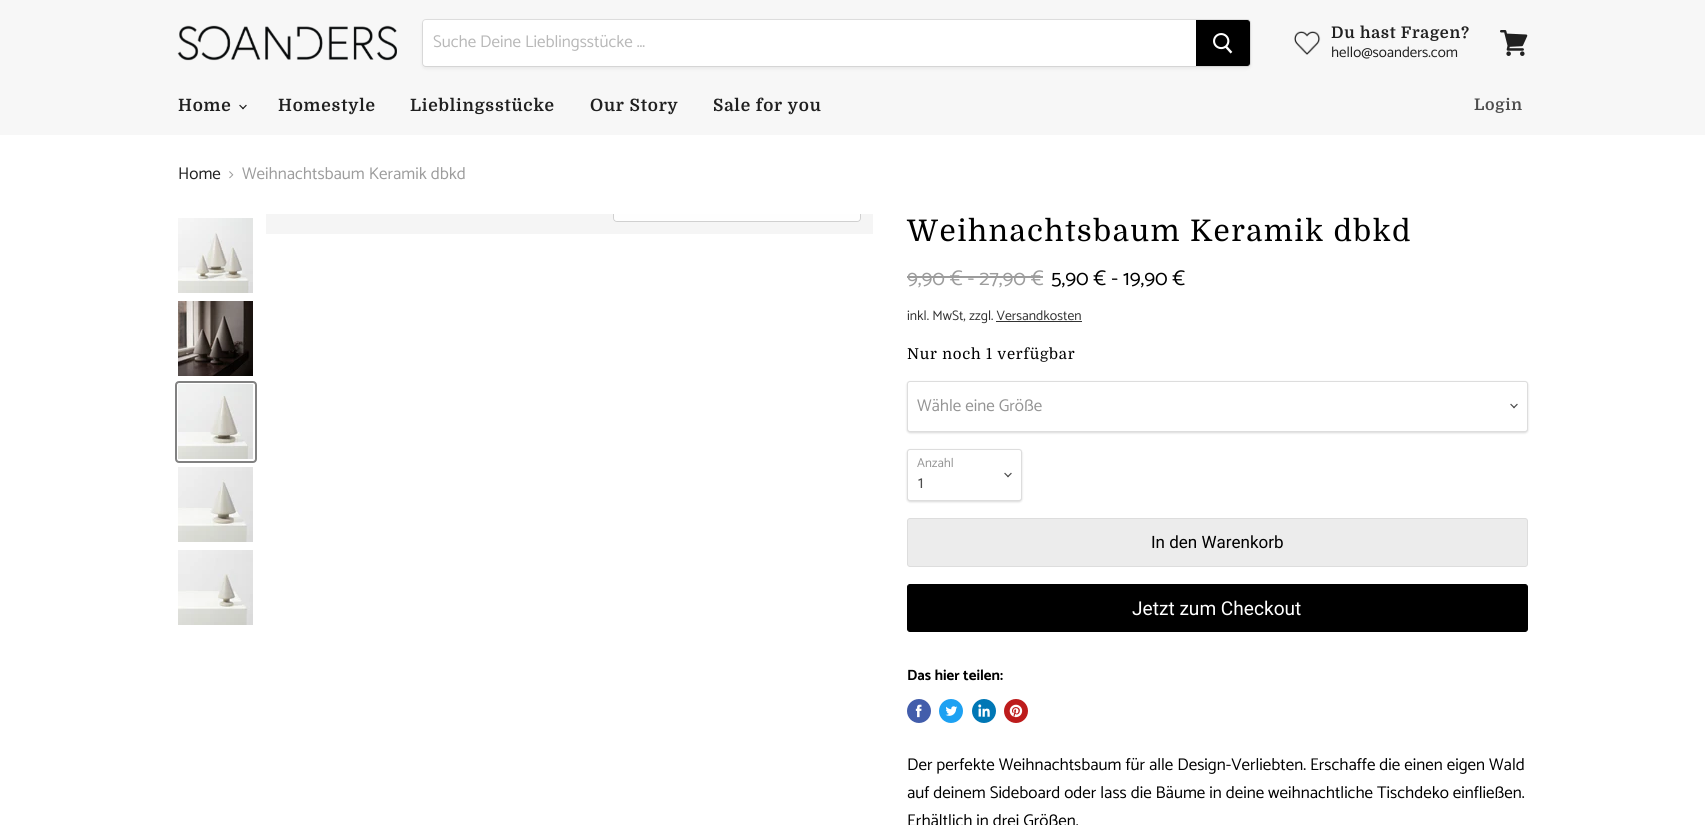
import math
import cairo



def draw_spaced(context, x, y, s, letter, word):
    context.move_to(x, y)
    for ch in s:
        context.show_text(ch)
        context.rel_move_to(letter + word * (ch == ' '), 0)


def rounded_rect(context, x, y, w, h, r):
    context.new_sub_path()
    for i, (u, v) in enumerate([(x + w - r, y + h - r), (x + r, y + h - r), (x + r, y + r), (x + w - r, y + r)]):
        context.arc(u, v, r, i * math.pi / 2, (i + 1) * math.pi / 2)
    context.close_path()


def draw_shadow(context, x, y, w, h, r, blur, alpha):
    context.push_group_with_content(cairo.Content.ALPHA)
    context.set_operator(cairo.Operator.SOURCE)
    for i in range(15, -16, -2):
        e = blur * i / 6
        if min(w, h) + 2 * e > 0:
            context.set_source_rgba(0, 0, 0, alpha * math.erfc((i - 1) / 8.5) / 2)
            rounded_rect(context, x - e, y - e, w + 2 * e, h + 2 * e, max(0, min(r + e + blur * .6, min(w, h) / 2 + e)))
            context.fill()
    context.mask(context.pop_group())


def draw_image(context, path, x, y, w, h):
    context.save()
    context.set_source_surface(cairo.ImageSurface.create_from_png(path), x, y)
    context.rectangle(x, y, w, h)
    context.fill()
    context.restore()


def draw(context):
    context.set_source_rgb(1, 1, 1)
    context.paint()
    context.set_source_rgb(247 / 255, 247 / 255, 247 / 255)
    context.rectangle(0, 0, 1705, 135)
    context.fill()
    draw_image(context, "images/1.png", 177, 25, 220, 36)
    context.set_source_rgb(128 / 255, 128 / 255, 128 / 255)
    draw_shadow(context, 422, 21, 829, 48, 4, 1.5, 0.11)
    rounded_rect(context, 422.5, 19.5, 828, 47, 3.5)
    context.set_source_rgba(128 / 255, 128 / 255, 128 / 255, 0.2)
    context.set_line_width(1)
    context.stroke()
    context.set_source_rgb(1, 1, 1)
    context.new_path()
    context.move_to(426, 20)
    context.line_to(1196, 20)
    context.line_to(1196, 66)
    context.line_to(426, 66)
    context.curve_to(424.5, 66, 423, 64.5, 423, 63)
    context.line_to(423, 23)
    context.curve_to(423, 21.5, 424.5, 20, 426, 20)
    context.close_path()
    context.fill()
    context.set_source_rgb(0, 0, 0)
    context.new_path()
    context.move_to(1196.5, 20.5)
    context.line_to(1247, 20.5)
    context.curve_to(1248.5, 20.5, 1249.5, 21.5, 1249.5, 23)
    context.line_to(1249.5, 63)
    context.curve_to(1249.5, 64.5, 1248.5, 65.5, 1247, 65.5)
    context.line_to(1196.5, 65.5)
    context.close_path()
    context.fill_preserve()
    context.stroke()
    draw_image(context, "images/2.png", 1213, 33, 20, 21)
    draw_image(context, "images/3.png", 1294, 31, 27, 24)
    draw_image(context, "images/4.png", 1500, 30, 28, 26)
    draw_image(context, "images/5.png", 239, 104, 8, 6)
    draw_image(context, "images/6.png", 229, 171, 5, 8)
    context.set_source_rgb(245 / 255, 245 / 255, 245 / 255)
    context.rectangle(266, 214, 607, 20)
    context.fill()
    context.save()
    context.rectangle(266, 214, 607, 20)
    context.clip()
    rounded_rect(context, 613.5, 191.5, 247, 30, 3.5)
    context.set_source_rgb(208 / 255, 208 / 255, 208 / 255)
    context.stroke()
    context.restore()
    context.set_source_rgba(1, 1, 1, 0.9)
    context.new_path()
    context.move_to(614, 214)
    context.line_to(860, 214)
    context.line_to(860, 218)
    context.curve_to(860, 219.5, 858.5, 221, 857, 221)
    context.line_to(617, 221)
    context.curve_to(615.5, 221, 614, 219.5, 614, 218)
    context.close_path()
    context.fill()
    draw_image(context, "images/7.png", 178, 218, 75, 75)
    draw_image(context, "images/8.png", 178, 301, 75, 75)
    rounded_rect(context, 176, 382, 80, 80, 3)
    context.set_source_rgb(129 / 255, 129 / 255, 129 / 255)
    context.set_line_width(2)
    context.stroke()
    draw_image(context, "images/9.png", 178, 384, 75, 75)
    draw_image(context, "images/10.png", 178, 467, 75, 75)
    draw_image(context, "images/11.png", 178, 550, 75, 75)
    context.set_source_rgb(156 / 255, 156 / 255, 156 / 255)
    context.rectangle(907, 276, 136, 2)
    context.fill()
    context.set_source_rgb(51 / 255, 51 / 255, 51 / 255)
    context.rectangle(996, 321, 86, 1)
    context.fill()
    context.set_source_rgb(0, 0, 0)
    draw_shadow(context, 907, 382, 621, 51, 3, 1, 0.15)
    context.set_source_rgb(1, 1, 1)
    rounded_rect(context, 907.5, 381.5, 620, 50, 2.5)
    context.fill_preserve()
    context.set_source_rgb(221 / 255, 221 / 255, 221 / 255)
    context.set_line_width(1)
    context.stroke()
    draw_image(context, "images/12.png", 1510, 403, 8, 6)
    context.set_source_rgb(0, 0, 0)
    draw_shadow(context, 907, 450, 115, 52, 3, 1, 0.15)
    context.set_source_rgb(1, 1, 1)
    rounded_rect(context, 907.5, 449.5, 114, 51, 2.5)
    context.fill_preserve()
    context.set_source_rgb(221 / 255, 221 / 255, 221 / 255)
    context.stroke()
    draw_image(context, "images/12.png", 1004, 472, 8, 6)
    context.set_source_rgb(236 / 255, 236 / 255, 236 / 255)
    rounded_rect(context, 907.5, 518.5, 620, 48, 2.5)
    context.fill_preserve()
    context.set_source_rgb(221 / 255, 221 / 255, 221 / 255)
    context.stroke()
    context.set_source_rgb(0, 0, 0)
    rounded_rect(context, 907.5, 584.5, 620, 47, 2.5)
    context.fill_preserve()
    context.stroke()
    context.set_source_rgb(66 / 255, 93 / 255, 171 / 255)
    context.arc(919, 711, 12, 0, 2 * math.pi)
    context.fill()
    draw_image(context, "images/13.png", 915, 704, 7, 14)
    context.set_source_rgb(29 / 255, 161 / 255, 242 / 255)
    context.arc(951, 711, 12, 0, 2 * math.pi)
    context.fill()
    draw_image(context, "images/14.png", 945, 706, 13, 10)
    context.set_source_rgb(0, 119 / 255, 181 / 255)
    context.arc(984, 711, 12, 0, 2 * math.pi)
    context.fill()
    draw_image(context, "images/15.png", 978, 704, 12, 13)
    context.set_source_rgb(189 / 255, 28 / 255, 28 / 255)
    context.arc(1016, 711, 12, 0, 2 * math.pi)
    context.fill()
    draw_image(context, "images/16.png", 1009, 704, 14, 14)
    context.select_font_face("Catamaran")
    context.set_font_size(17)
    context.set_source_rgb(184 / 255, 184 / 255, 184 / 255)
    context.move_to(433, 47)
    context.show_text("Suche Deine Lieblingsstücke ...")
    context.select_font_face("Domine", cairo.FontSlant.NORMAL, cairo.FontWeight.BOLD)
    context.set_font_size(16)
    context.set_source_rgb(32 / 255, 32 / 255, 32 / 255)
    draw_spaced(context, 1331, 38, "Du hast Fragen?", 0.75, 0)
    context.select_font_face("Catamaran")
    context.set_font_size(14.9)
    context.move_to(1331, 57)
    context.show_text("hello@soanders.com")
    context.select_font_face("Domine", cairo.FontSlant.NORMAL, cairo.FontWeight.BOLD)
    context.set_font_size(17)
    draw_spaced(context, 178, 111, "Home", 0.8, 0)
    draw_spaced(context, 278, 111, "Homestyle", 0.8, 0)
    draw_spaced(context, 410, 111, "Lieblingsstücke", 0.8, 0)
    draw_spaced(context, 590, 111, "Our Story", 0.8, 0)
    draw_spaced(context, 713, 111, "Sale for you", 0.8, 0)
    context.set_font_size(16)
    context.set_source_rgb(77 / 255, 77 / 255, 77 / 255)
    draw_spaced(context, 1474, 110, "Login", 0.75, 0)
    context.select_font_face("Catamaran")
    context.set_font_size(17)
    context.set_source_rgb(32 / 255, 32 / 255, 32 / 255)
    context.move_to(178, 179)
    context.show_text("Home")
    context.set_source_rgb(156 / 255, 156 / 255, 156 / 255)
    context.move_to(242, 179)
    context.show_text("Weihnachtsbaum Keramik dbkd")
    context.select_font_face("Domine")
    context.set_font_size(29.75)
    context.set_source_rgb(0, 0, 0)
    draw_spaced(context, 907, 241, "Weihnachtsbaum Keramik dbkd", 1.5, 0)
    context.select_font_face("Catamaran")
    context.set_font_size(21.25)
    context.set_source_rgb(156 / 255, 156 / 255, 156 / 255)
    context.move_to(907, 285)
    context.show_text("9,90 € - 27,90 €")
    context.set_source_rgb(0, 0, 0)
    context.move_to(1051, 285)
    context.show_text("5,90 € - 19,90 €")
    context.set_font_size(13.75)
    context.set_source_rgb(51 / 255, 51 / 255, 51 / 255)
    context.move_to(907, 320)
    context.show_text("inkl. MwSt, zzgl. Versandkosten")
    context.select_font_face("Domine")
    context.set_font_size(15)
    context.set_source_rgb(0, 0, 0)
    draw_spaced(context, 907, 359, "Nur noch 1 verfügbar", 0.75, 0)
    context.select_font_face("Catamaran")
    context.set_font_size(17)
    context.set_source_rgb(148 / 255, 148 / 255, 148 / 255)
    context.move_to(917, 411)
    context.show_text("Wähle eine Größe")
    context.set_font_size(13)
    context.move_to(917, 467)
    context.show_text("Anzahl")
    context.set_font_size(17)
    context.set_source_rgb(77 / 255, 77 / 255, 77 / 255)
    context.move_to(918, 488)
    context.show_text("1")
    context.select_font_face("Roboto")
    context.set_source_rgb(0, 0, 0)
    context.move_to(1151, 548)
    context.show_text("In den Warenkorb")
    context.set_font_size(19.1)
    context.set_source_rgb(1, 1, 1)
    context.move_to(1132, 615)
    context.show_text("Jetzt zum Checkout")
    context.select_font_face("Catamaran", cairo.FontSlant.NORMAL, cairo.FontWeight.BOLD)
    context.set_font_size(14.9)
    context.set_source_rgb(0, 0, 0)
    context.move_to(907, 680)
    context.show_text("Das hier teilen:")
    context.select_font_face("Catamaran")
    context.set_font_size(17)
    context.move_to(907, 770)
    context.show_text("Der perfekte Weihnachtsbaum für alle Design-Verliebten. Erschaffe die einen eigen Wald")
    context.move_to(907, 798)
    context.show_text("auf deinem Sideboard oder lass die Bäume in deine weihnachtliche Tischdeko einfließen.")
    context.move_to(907, 826)
    context.show_text("Erhältlich in drei Größen.")


surface = cairo.ImageSurface(cairo.Format.RGB24, 1705, 825)
context = cairo.Context(surface)
options = cairo.FontOptions()
options.set_hint_metrics(cairo.HintMetrics.OFF)
options.set_hint_style(cairo.HintStyle.NONE)
context.set_font_options(options)
context.set_miter_limit(4)
draw(context)
surface.write_to_png("out.png")
